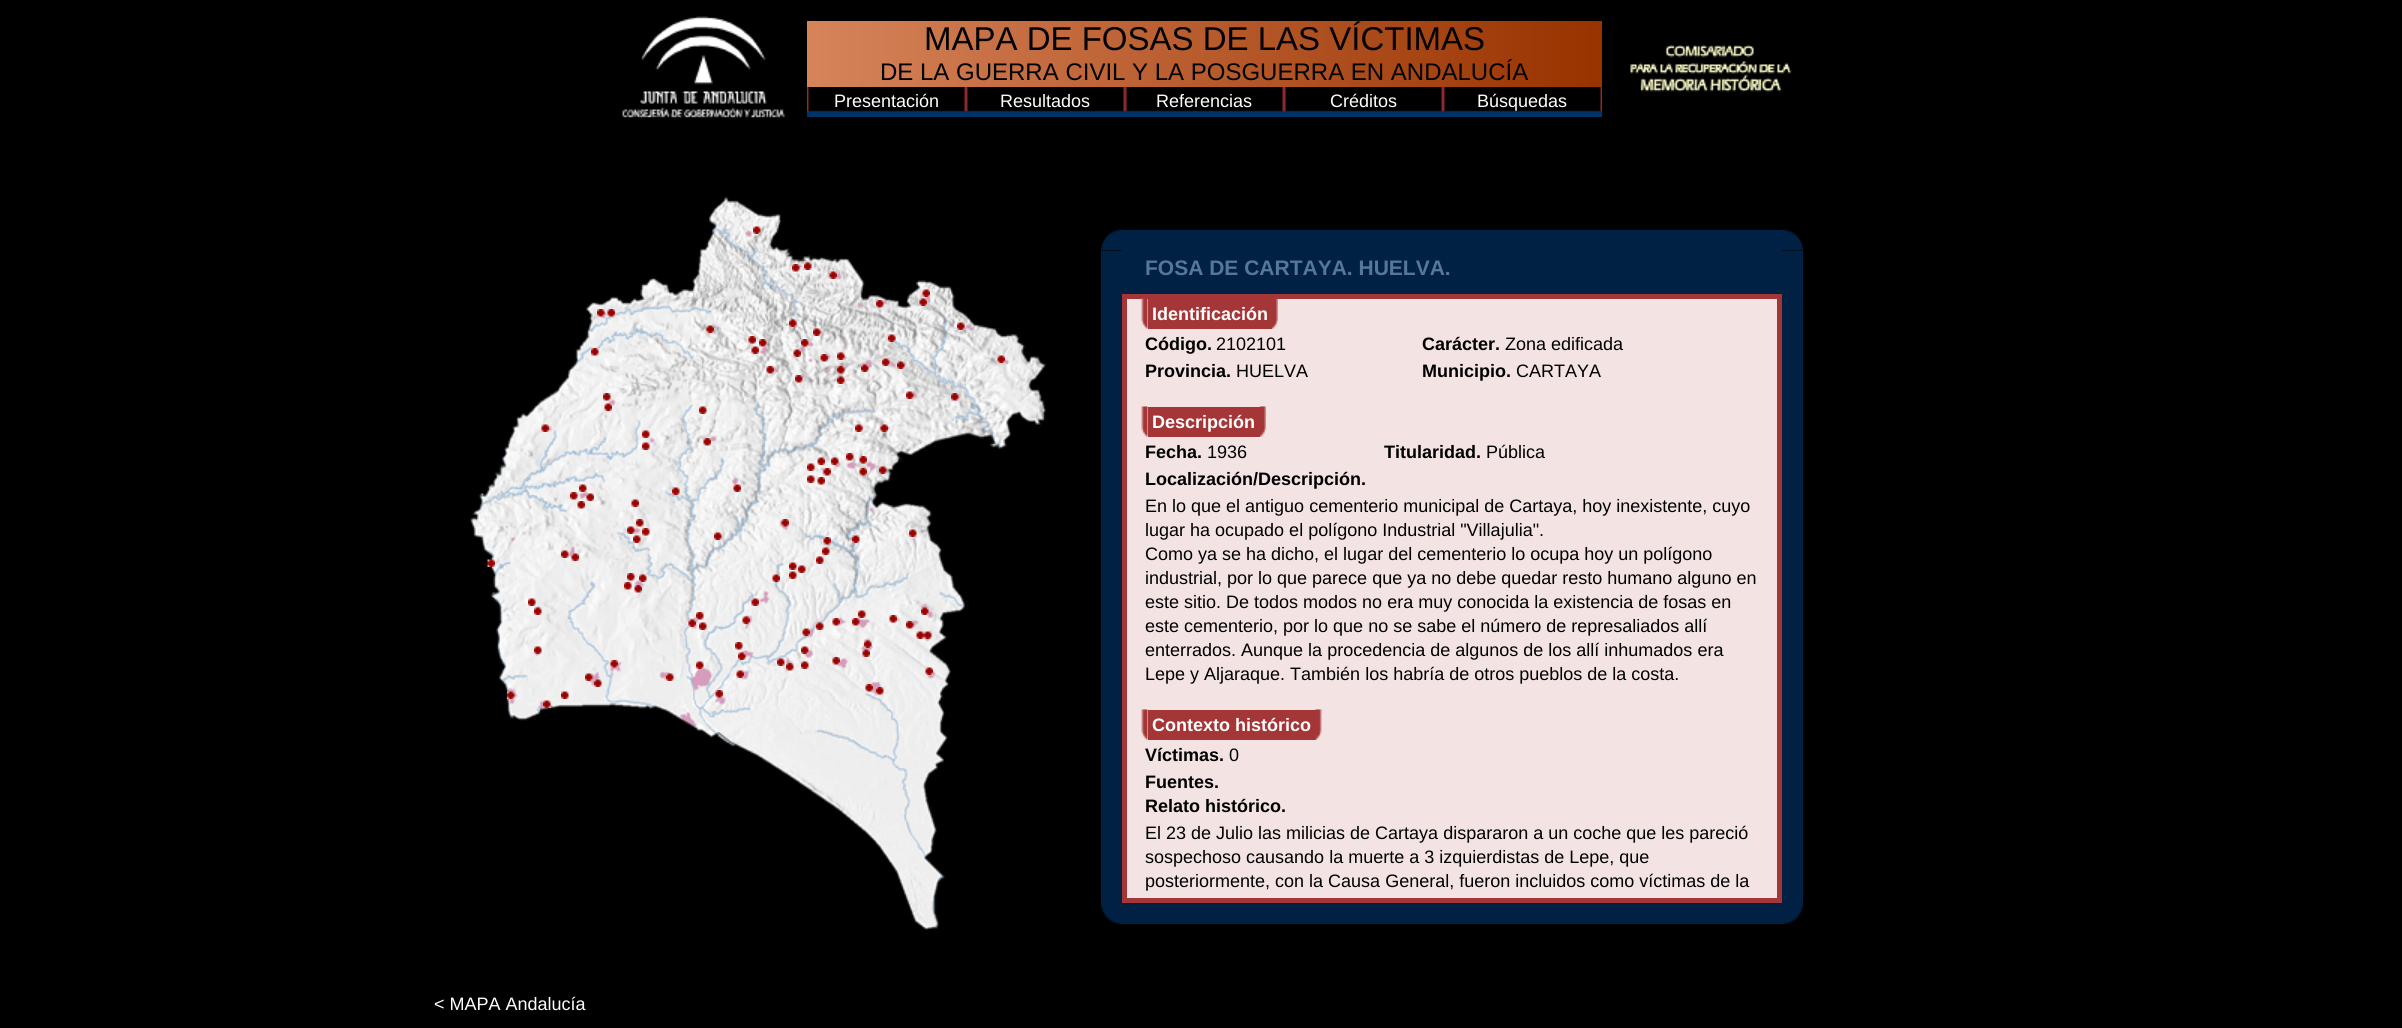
import math
import cairo



def draw_image(context, path, x, y, w, h):
    context.save()
    context.set_source_surface(cairo.ImageSurface.create_from_png(path), x, y)
    context.rectangle(x, y, w, h)
    context.fill()
    context.restore()


def draw(context):
    context.set_source_rgb(0, 0, 0)
    context.paint()
    draw_image(context, "images/1.png", 622, 16, 163, 102)
    draw_image(context, "images/2.png", 807, 21, 795, 66)
    draw_image(context, "images/3.png", 807, 87, 159, 30)
    draw_image(context, "images/3.png", 966, 87, 159, 30)
    draw_image(context, "images/4.png", 1125, 87, 159, 30)
    draw_image(context, "images/4.png", 1284, 87, 159, 30)
    draw_image(context, "images/3.png", 1443, 87, 159, 30)
    draw_image(context, "images/5.png", 1630, 44, 162, 48)
    draw_image(context, "images/6.png", 470, 196, 577, 735)
    draw_image(context, "images/7.png", 753, 226, 8, 8)
    draw_image(context, "images/8.png", 792, 264, 8, 8)
    draw_image(context, "images/9.png", 804, 262, 8, 8)
    draw_image(context, "images/10.png", 829, 271, 8, 8)
    draw_image(context, "images/11.png", 922, 289, 8, 8)
    draw_image(context, "images/12.png", 876, 300, 8, 8)
    draw_image(context, "images/13.png", 919, 298, 8, 8)
    draw_image(context, "images/14.png", 597, 309, 8, 8)
    draw_image(context, "images/15.png", 607, 309, 8, 8)
    draw_image(context, "images/16.png", 706, 325, 8, 8)
    draw_image(context, "images/17.png", 789, 319, 8, 8)
    draw_image(context, "images/18.png", 813, 328, 8, 8)
    draw_image(context, "images/19.png", 957, 322, 8, 8)
    draw_image(context, "images/20.png", 748, 336, 8, 8)
    draw_image(context, "images/21.png", 759, 339, 8, 8)
    draw_image(context, "images/22.png", 801, 339, 8, 8)
    draw_image(context, "images/23.png", 888, 334, 8, 8)
    draw_image(context, "images/24.png", 591, 348, 8, 8)
    draw_image(context, "images/25.png", 751, 346, 8, 8)
    draw_image(context, "images/26.png", 766, 366, 8, 8)
    draw_image(context, "images/27.png", 793, 349, 8, 8)
    draw_image(context, "images/28.png", 820, 354, 8, 8)
    draw_image(context, "images/29.png", 837, 352, 8, 8)
    draw_image(context, "images/30.png", 861, 364, 8, 8)
    draw_image(context, "images/31.png", 882, 358, 8, 8)
    draw_image(context, "images/32.png", 897, 361, 8, 8)
    draw_image(context, "images/33.png", 997, 355, 8, 8)
    draw_image(context, "images/34.png", 837, 366, 8, 8)
    draw_image(context, "images/35.png", 795, 375, 8, 8)
    draw_image(context, "images/36.png", 837, 376, 8, 8)
    draw_image(context, "images/37.png", 603, 393, 8, 8)
    draw_image(context, "images/38.png", 906, 391, 8, 8)
    draw_image(context, "images/39.png", 951, 393, 8, 8)
    draw_image(context, "images/40.png", 604, 403, 8, 8)
    draw_image(context, "images/41.png", 699, 406, 8, 8)
    draw_image(context, "images/42.png", 541, 424, 8, 8)
    draw_image(context, "images/43.png", 855, 424, 8, 8)
    draw_image(context, "images/44.png", 880, 424, 8, 8)
    draw_image(context, "images/45.png", 642, 430, 8, 8)
    draw_image(context, "images/46.png", 642, 442, 8, 8)
    draw_image(context, "images/47.png", 703, 438, 8, 8)
    draw_image(context, "images/48.png", 817, 457, 8, 8)
    draw_image(context, "images/49.png", 831, 457, 8, 8)
    draw_image(context, "images/50.png", 846, 453, 8, 8)
    draw_image(context, "images/51.png", 859, 456, 8, 8)
    draw_image(context, "images/52.png", 807, 463, 8, 8)
    draw_image(context, "images/53.png", 823, 468, 8, 8)
    draw_image(context, "images/54.png", 859, 468, 8, 8)
    draw_image(context, "images/55.png", 879, 466, 8, 8)
    draw_image(context, "images/56.png", 807, 475, 8, 8)
    draw_image(context, "images/57.png", 817, 477, 8, 8)
    draw_image(context, "images/58.png", 579, 484, 8, 8)
    draw_image(context, "images/59.png", 672, 487, 8, 8)
    draw_image(context, "images/60.png", 733, 484, 8, 8)
    draw_image(context, "images/61.png", 570, 492, 8, 8)
    draw_image(context, "images/62.png", 586, 493, 8, 8)
    draw_image(context, "images/63.png", 577, 501, 8, 8)
    draw_image(context, "images/64.png", 631, 499, 8, 8)
    draw_image(context, "images/65.png", 636, 519, 8, 8)
    draw_image(context, "images/66.png", 781, 519, 8, 8)
    draw_image(context, "images/67.png", 627, 526, 8, 8)
    draw_image(context, "images/68.png", 633, 535, 8, 8)
    draw_image(context, "images/69.png", 642, 528, 8, 8)
    draw_image(context, "images/70.png", 714, 532, 8, 8)
    draw_image(context, "images/71.png", 823, 537, 8, 8)
    draw_image(context, "images/72.png", 852, 535, 8, 8)
    draw_image(context, "images/73.png", 909, 529, 8, 8)
    draw_image(context, "images/74.png", 487, 559, 8, 8)
    draw_image(context, "images/75.png", 561, 550, 8, 8)
    draw_image(context, "images/76.png", 571, 553, 8, 8)
    draw_image(context, "images/77.png", 789, 562, 8, 8)
    draw_image(context, "images/78.png", 798, 565, 8, 8)
    draw_image(context, "images/79.png", 816, 556, 8, 8)
    draw_image(context, "images/80.png", 822, 547, 8, 8)
    draw_image(context, "images/81.png", 627, 573, 8, 8)
    draw_image(context, "images/82.png", 639, 574, 8, 8)
    draw_image(context, "images/83.png", 772, 574, 8, 8)
    draw_image(context, "images/84.png", 789, 571, 8, 8)
    draw_image(context, "images/85.png", 624, 582, 8, 8)
    draw_image(context, "images/86.png", 634, 585, 8, 8)
    draw_image(context, "images/87.png", 528, 598, 8, 8)
    draw_image(context, "images/88.png", 751, 598, 8, 8)
    draw_image(context, "images/89.png", 534, 607, 8, 8)
    draw_image(context, "images/90.png", 688, 619, 8, 8)
    draw_image(context, "images/91.png", 696, 612, 8, 8)
    draw_image(context, "images/92.png", 742, 616, 8, 8)
    draw_image(context, "images/93.png", 832, 618, 8, 8)
    draw_image(context, "images/94.png", 852, 618, 8, 8)
    draw_image(context, "images/95.png", 858, 610, 8, 8)
    draw_image(context, "images/96.png", 889, 615, 8, 8)
    draw_image(context, "images/97.png", 906, 621, 8, 8)
    draw_image(context, "images/98.png", 921, 607, 8, 8)
    draw_image(context, "images/99.png", 699, 622, 8, 8)
    draw_image(context, "images/100.png", 816, 622, 8, 8)
    draw_image(context, "images/101.png", 802, 628, 8, 8)
    draw_image(context, "images/102.png", 916, 631, 8, 8)
    draw_image(context, "images/103.png", 924, 631, 8, 8)
    draw_image(context, "images/104.png", 534, 646, 8, 8)
    draw_image(context, "images/105.png", 735, 642, 8, 8)
    draw_image(context, "images/106.png", 801, 646, 8, 8)
    draw_image(context, "images/107.png", 864, 640, 8, 8)
    draw_image(context, "images/108.png", 738, 652, 8, 8)
    draw_image(context, "images/109.png", 862, 649, 8, 8)
    draw_image(context, "images/110.png", 585, 673, 8, 8)
    draw_image(context, "images/111.png", 610, 660, 8, 8)
    draw_image(context, "images/112.png", 666, 673, 8, 8)
    draw_image(context, "images/113.png", 696, 661, 8, 8)
    draw_image(context, "images/114.png", 736, 670, 8, 8)
    draw_image(context, "images/115.png", 777, 658, 8, 8)
    draw_image(context, "images/116.png", 786, 663, 8, 8)
    draw_image(context, "images/117.png", 801, 661, 8, 8)
    draw_image(context, "images/118.png", 832, 657, 8, 8)
    draw_image(context, "images/119.png", 925, 667, 8, 8)
    draw_image(context, "images/120.png", 594, 679, 8, 8)
    draw_image(context, "images/121.png", 507, 691, 8, 8)
    draw_image(context, "images/122.png", 561, 691, 8, 8)
    draw_image(context, "images/123.png", 715, 690, 8, 8)
    draw_image(context, "images/124.png", 865, 684, 8, 8)
    draw_image(context, "images/125.png", 876, 687, 8, 8)
    draw_image(context, "images/126.png", 543, 700, 8, 8)
    draw_image(context, "images/127.png", 1101, 229, 21, 22)
    context.set_source_rgb(0, 33 / 255, 67 / 255)
    context.rectangle(1122, 230, 660, 21)
    context.fill()
    draw_image(context, "images/128.png", 1782, 229, 21, 22)
    context.rectangle(1101, 251, 702, 43)
    context.fill()
    context.rectangle(1101, 294, 21, 609)
    context.fill()
    context.set_source_rgb(243 / 255, 227 / 255, 227 / 255)
    context.rectangle(1124.5, 296.5, 655, 604)
    context.fill_preserve()
    context.set_source_rgb(165 / 255, 54 / 255, 55 / 255)
    context.set_line_width(5)
    context.stroke()
    draw_image(context, "images/129.png", 1141, 298, 7, 31)
    context.rectangle(1148, 299, 124, 30)
    context.fill()
    draw_image(context, "images/130.png", 1272, 298, 6, 31)
    draw_image(context, "images/131.png", 1141, 406, 7, 31)
    context.rectangle(1148, 407, 112, 30)
    context.fill()
    draw_image(context, "images/132.png", 1260, 406, 6, 31)
    draw_image(context, "images/131.png", 1141, 709, 7, 31)
    context.rectangle(1148, 710, 168, 30)
    context.fill()
    draw_image(context, "images/133.png", 1315, 709, 7, 31)
    context.set_source_rgb(0, 33 / 255, 67 / 255)
    context.rectangle(1782, 294, 21, 609)
    context.fill()
    draw_image(context, "images/134.png", 1101, 903, 21, 21)
    context.rectangle(1122, 903, 660, 21)
    context.fill()
    draw_image(context, "images/135.png", 1782, 903, 21, 21)
    context.select_font_face("Liberation Sans")
    context.set_font_size(33)
    context.set_source_rgb(0, 0, 0)
    context.move_to(924, 50)
    context.show_text("MAPA DE FOSAS DE LAS VÍCTIMAS")
    context.set_font_size(24)
    context.move_to(880, 80)
    context.show_text("DE LA GUERRA CIVIL Y LA POSGUERRA EN ANDALUCÍA")
    context.set_font_size(18)
    context.set_source_rgb(1, 1, 1)
    context.move_to(834, 107)
    context.show_text("Presentación")
    context.move_to(1000, 107)
    context.show_text("Resultados")
    context.move_to(1156, 107)
    context.show_text("Referencias")
    context.move_to(1330, 107)
    context.show_text("Créditos")
    context.move_to(1477, 107)
    context.show_text("Búsquedas")
    context.select_font_face("Liberation Sans", cairo.FontSlant.NORMAL, cairo.FontWeight.BOLD)
    context.set_font_size(21)
    context.set_source_rgb(86 / 255, 119 / 255, 153 / 255)
    context.move_to(1145, 275)
    context.show_text("FOSA DE CARTAYA. HUELVA.")
    context.set_font_size(18)
    context.set_source_rgb(1, 1, 1)
    context.move_to(1152, 320)
    context.show_text("Identificación")
    context.set_source_rgb(0, 0, 0)
    context.move_to(1145, 350)
    context.show_text("Código.")
    context.select_font_face("Liberation Sans")
    context.move_to(1216, 350)
    context.show_text("2102101")
    context.select_font_face("Liberation Sans", cairo.FontSlant.NORMAL, cairo.FontWeight.BOLD)
    context.move_to(1422, 350)
    context.show_text("Carácter.")
    context.select_font_face("Liberation Sans")
    context.move_to(1505, 350)
    context.show_text("Zona edificada")
    context.select_font_face("Liberation Sans", cairo.FontSlant.NORMAL, cairo.FontWeight.BOLD)
    context.move_to(1145, 377)
    context.show_text("Provincia.")
    context.select_font_face("Liberation Sans")
    context.move_to(1236, 377)
    context.show_text("HUELVA")
    context.select_font_face("Liberation Sans", cairo.FontSlant.NORMAL, cairo.FontWeight.BOLD)
    context.move_to(1422, 377)
    context.show_text("Municipio.")
    context.select_font_face("Liberation Sans")
    context.move_to(1516, 377)
    context.show_text("CARTAYA")
    context.select_font_face("Liberation Sans", cairo.FontSlant.NORMAL, cairo.FontWeight.BOLD)
    context.set_source_rgb(1, 1, 1)
    context.move_to(1152, 428)
    context.show_text("Descripción")
    context.set_source_rgb(0, 0, 0)
    context.move_to(1145, 458)
    context.show_text("Fecha.")
    context.select_font_face("Liberation Sans")
    context.move_to(1207, 458)
    context.show_text("1936")
    context.select_font_face("Liberation Sans", cairo.FontSlant.NORMAL, cairo.FontWeight.BOLD)
    context.move_to(1384, 458)
    context.show_text("Titularidad.")
    context.select_font_face("Liberation Sans")
    context.move_to(1486, 458)
    context.show_text("Pública")
    context.select_font_face("Liberation Sans", cairo.FontSlant.NORMAL, cairo.FontWeight.BOLD)
    context.move_to(1145, 485)
    context.show_text("Localización/Descripción.")
    context.select_font_face("Liberation Sans")
    context.move_to(1145, 512)
    context.show_text("En lo que el antiguo cementerio municipal de Cartaya, hoy inexistente, cuyo")
    context.move_to(1145, 536)
    context.show_text("lugar ha ocupado el polígono Industrial \"Villajulia\".")
    context.move_to(1145, 560)
    context.show_text("Como ya se ha dicho, el lugar del cementerio lo ocupa hoy un polígono")
    context.move_to(1145, 584)
    context.show_text("industrial, por lo que parece que ya no debe quedar resto humano alguno en")
    context.move_to(1145, 608)
    context.show_text("este sitio. De todos modos no era muy conocida la existencia de fosas en")
    context.move_to(1145, 632)
    context.show_text("este cementerio, por lo que no se sabe el número de represaliados allí")
    context.move_to(1145, 656)
    context.show_text("enterrados. Aunque la procedencia de algunos de los allí inhumados era")
    context.move_to(1145, 680)
    context.show_text("Lepe y Aljaraque. También los habría de otros pueblos de la costa.")
    context.select_font_face("Liberation Sans", cairo.FontSlant.NORMAL, cairo.FontWeight.BOLD)
    context.set_source_rgb(1, 1, 1)
    context.move_to(1152, 731)
    context.show_text("Contexto histórico")
    context.set_source_rgb(0, 0, 0)
    context.move_to(1145, 761)
    context.show_text("Víctimas.")
    context.select_font_face("Liberation Sans")
    context.move_to(1229, 761)
    context.show_text("0")
    context.select_font_face("Liberation Sans", cairo.FontSlant.NORMAL, cairo.FontWeight.BOLD)
    context.move_to(1145, 788)
    context.show_text("Fuentes.")
    context.move_to(1145, 812)
    context.show_text("Relato histórico.")
    context.select_font_face("Liberation Sans")
    context.move_to(1145, 839)
    context.show_text("El 23 de Julio las milicias de Cartaya dispararon a un coche que les pareció")
    context.move_to(1145, 863)
    context.show_text("sospechoso causando la muerte a 3 izquierdistas de Lepe, que")
    context.move_to(1145, 887)
    context.show_text("posteriormente, con la Causa General, fueron incluidos como víctimas de la")
    context.set_source_rgb(1, 1, 1)
    context.move_to(434, 1010)
    context.show_text("< MAPA Andalucía")


surface = cairo.ImageSurface(cairo.Format.RGB24, 2402, 1028)
context = cairo.Context(surface)
options = cairo.FontOptions()
options.set_hint_metrics(cairo.HintMetrics.OFF)
options.set_hint_style(cairo.HintStyle.NONE)
context.set_font_options(options)
context.set_miter_limit(4)
draw(context)
surface.write_to_png("out.png")
